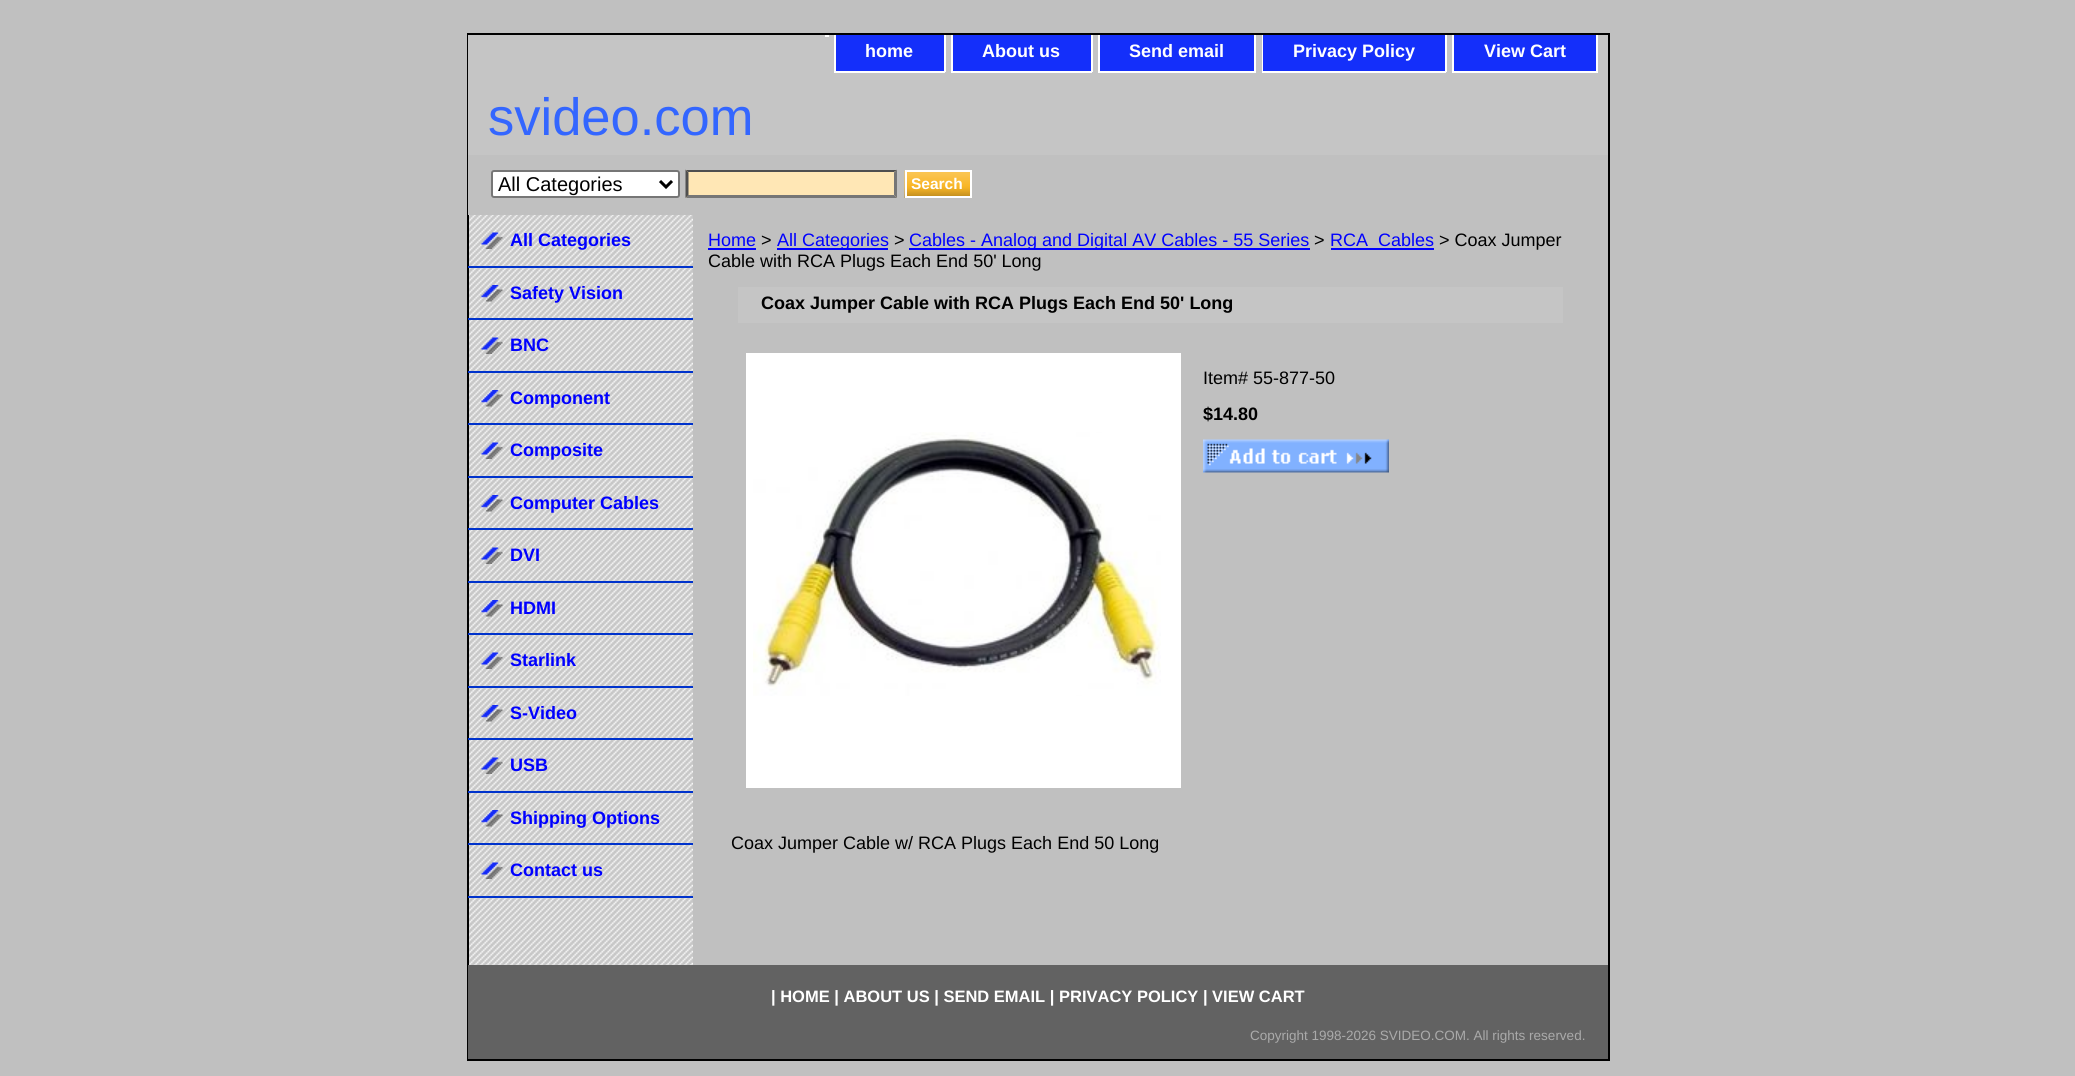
import math
import cairo



def rounded_rect(context, x, y, w, h, r):
    context.new_sub_path()
    for i, (u, v) in enumerate([(x + w - r, y + h - r), (x + r, y + h - r), (x + r, y + r), (x + w - r, y + r)]):
        context.arc(u, v, r, i * math.pi / 2, (i + 1) * math.pi / 2)
    context.close_path()


def draw_image(context, path, x, y, w, h):
    context.save()
    context.set_source_surface(cairo.ImageSurface.create_from_png(path), x, y)
    context.rectangle(x, y, w, h)
    context.fill()
    context.restore()


def draw(context):
    context.set_source_rgb(192 / 255, 192 / 255, 192 / 255)
    context.paint()
    draw_image(context, "images/1.png", 469, 215, 224, 750)
    context.rectangle(468, 34, 1141, 1026)
    context.set_source_rgb(0, 0, 0)
    context.stroke()
    context.set_source_rgb(197 / 255, 197 / 255, 197 / 255)
    context.rectangle(468, 35, 1140, 120)
    context.fill()
    context.set_source_rgb(1, 1, 1)
    context.rectangle(825, 35, 4, 2)
    context.fill()
    context.rectangle(944, 35, 2, 37)
    context.fill()
    context.rectangle(834, 71, 111, 2)
    context.fill()
    context.rectangle(834, 35, 2, 37)
    context.fill()
    context.set_source_rgb(20 / 255, 47 / 255, 250 / 255)
    context.rectangle(836, 35, 108, 36)
    context.fill()
    context.set_source_rgb(1, 1, 1)
    context.rectangle(1091, 35, 2, 37)
    context.fill()
    context.rectangle(951, 71, 141, 2)
    context.fill()
    context.rectangle(951, 35, 2, 37)
    context.fill()
    context.set_source_rgb(20 / 255, 47 / 255, 250 / 255)
    context.rectangle(953, 35, 138, 36)
    context.fill()
    context.set_source_rgb(1, 1, 1)
    context.rectangle(1254, 35, 2, 37)
    context.fill()
    context.rectangle(1098, 71, 158, 2)
    context.fill()
    context.rectangle(1098, 35, 2, 37)
    context.fill()
    context.set_source_rgb(20 / 255, 47 / 255, 250 / 255)
    context.rectangle(1100, 35, 154, 36)
    context.fill()
    context.set_source_rgb(1, 1, 1)
    context.rectangle(1445, 35, 2, 37)
    context.fill()
    context.rectangle(1262, 71, 184, 2)
    context.fill()
    context.rectangle(1262, 35, 2, 37)
    context.fill()
    context.set_source_rgb(20 / 255, 47 / 255, 250 / 255)
    context.rectangle(1263, 35, 182, 36)
    context.fill()
    context.set_source_rgb(1, 1, 1)
    context.rectangle(1596, 35, 2, 37)
    context.fill()
    context.rectangle(1452, 71, 146, 2)
    context.fill()
    context.rectangle(1452, 35, 2, 37)
    context.fill()
    context.set_source_rgb(20 / 255, 47 / 255, 250 / 255)
    context.rectangle(1454, 35, 142, 36)
    context.fill()
    context.set_source_rgb(192 / 255, 192 / 255, 192 / 255)
    context.rectangle(468, 155, 1, 60)
    context.fill()
    context.set_source_rgb(1, 1, 1)
    rounded_rect(context, 492, 171, 187, 26, 2)
    context.fill_preserve()
    context.set_source_rgb(118 / 255, 118 / 255, 118 / 255)
    context.stroke()
    context.new_path()
    context.move_to(660, 181)
    context.line_to(666, 187)
    context.line_to(672, 181)
    context.set_source_rgb(0, 0, 0)
    context.set_line_width(3)
    context.stroke()
    context.set_source_rgb(1, 231 / 255, 181 / 255)
    context.rectangle(686, 170, 211, 28)
    context.fill()
    context.set_source_rgb(79 / 255, 79 / 255, 79 / 255)
    context.new_path()
    context.move_to(686, 170)
    context.line_to(897, 170)
    context.line_to(894, 172)
    context.line_to(688, 172)
    context.close_path()
    context.fill()
    context.set_source_rgb(118 / 255, 118 / 255, 118 / 255)
    context.new_path()
    context.move_to(897, 169.5)
    context.line_to(897, 198)
    context.line_to(894, 195)
    context.line_to(894, 172.5)
    context.close_path()
    context.fill()
    context.new_path()
    context.move_to(897, 198)
    context.line_to(686, 198)
    context.line_to(688, 195)
    context.line_to(894, 195)
    context.close_path()
    context.fill()
    context.set_source_rgb(79 / 255, 79 / 255, 79 / 255)
    context.new_path()
    context.move_to(685.5, 198)
    context.line_to(685.5, 169.5)
    context.line_to(688.5, 172.5)
    context.line_to(688.5, 195)
    context.close_path()
    context.fill()
    draw_image(context, "images/2.png", 904, 171, 66, 27)
    context.rectangle(906, 171, 65, 26)
    context.set_source_rgb(1, 1, 1)
    context.set_line_width(2)
    context.stroke()
    draw_image(context, "images/3.png", 481, 232, 22, 17)
    context.set_source_rgb(0, 51 / 255, 204 / 255)
    context.rectangle(468, 266, 225, 2)
    context.fill()
    draw_image(context, "images/4.png", 481, 285, 22, 17)
    context.rectangle(468, 318, 225, 2)
    context.fill()
    draw_image(context, "images/5.png", 481, 337, 22, 17)
    context.rectangle(468, 371, 225, 2)
    context.fill()
    draw_image(context, "images/6.png", 481, 390, 22, 17)
    context.rectangle(468, 423, 225, 2)
    context.fill()
    draw_image(context, "images/3.png", 481, 442, 22, 17)
    context.rectangle(468, 476, 225, 2)
    context.fill()
    draw_image(context, "images/4.png", 481, 495, 22, 17)
    context.rectangle(468, 528, 225, 2)
    context.fill()
    draw_image(context, "images/5.png", 481, 547, 22, 17)
    context.rectangle(468, 581, 225, 2)
    context.fill()
    draw_image(context, "images/6.png", 481, 600, 22, 17)
    context.rectangle(468, 633, 225, 2)
    context.fill()
    draw_image(context, "images/3.png", 481, 652, 22, 17)
    context.rectangle(468, 686, 225, 2)
    context.fill()
    draw_image(context, "images/4.png", 481, 705, 22, 17)
    context.rectangle(468, 738, 225, 2)
    context.fill()
    draw_image(context, "images/5.png", 481, 757, 22, 17)
    context.rectangle(468, 791, 225, 2)
    context.fill()
    draw_image(context, "images/6.png", 481, 810, 22, 17)
    context.rectangle(468, 843, 225, 2)
    context.fill()
    draw_image(context, "images/3.png", 481, 862, 22, 17)
    context.rectangle(468, 896, 225, 2)
    context.fill()
    context.set_source_rgb(0, 0, 1)
    context.rectangle(708, 248, 48, 2)
    context.fill()
    context.rectangle(777, 248, 111, 2)
    context.fill()
    context.rectangle(909, 248, 401, 2)
    context.fill()
    context.rectangle(1331, 248, 103, 2)
    context.fill()
    context.set_source_rgb(197 / 255, 197 / 255, 197 / 255)
    context.rectangle(738, 287, 825, 36)
    context.fill()
    context.set_source_rgb(1, 1, 1)
    context.rectangle(746, 353, 435, 435)
    context.fill()
    draw_image(context, "images/7.png", 753, 432, 408, 264)
    draw_image(context, "images/8.png", 1203, 439, 186, 34)
    context.set_source_rgb(98 / 255, 98 / 255, 98 / 255)
    context.rectangle(468, 965, 1140, 94)
    context.fill()
    context.select_font_face("Liberation Sans", cairo.FontSlant.NORMAL, cairo.FontWeight.BOLD)
    context.set_font_size(18)
    context.set_source_rgb(1, 1, 1)
    context.move_to(865, 57)
    context.show_text("home")
    context.move_to(982, 57)
    context.show_text("About us")
    context.move_to(1129, 57)
    context.show_text("Send email")
    context.move_to(1293, 57)
    context.show_text("Privacy Policy")
    context.move_to(1484, 57)
    context.show_text("View Cart")
    context.select_font_face("Liberation Sans")
    context.set_font_size(52.5)
    context.set_source_rgb(51 / 255, 102 / 255, 1)
    context.move_to(488, 135)
    context.show_text("svideo.com")
    context.set_font_size(20)
    context.set_source_rgb(0, 0, 0)
    context.move_to(498, 191)
    context.show_text("All Categories")
    context.select_font_face("Liberation Sans", cairo.FontSlant.NORMAL, cairo.FontWeight.BOLD)
    context.set_font_size(15.5)
    context.set_source_rgb(1, 1, 1)
    context.move_to(911, 189)
    context.show_text("Search")
    context.set_font_size(18)
    context.set_source_rgb(0, 0, 1)
    context.move_to(510, 246)
    context.show_text("All Categories")
    context.move_to(510, 299)
    context.show_text("Safety Vision")
    context.move_to(510, 351)
    context.show_text("BNC")
    context.move_to(510, 404)
    context.show_text("Component")
    context.move_to(510, 456)
    context.show_text("Composite")
    context.move_to(510, 509)
    context.show_text("Computer Cables")
    context.move_to(510, 561)
    context.show_text("DVI")
    context.move_to(510, 614)
    context.show_text("HDMI")
    context.move_to(510, 666)
    context.show_text("Starlink")
    context.move_to(510, 719)
    context.show_text("S-Video")
    context.move_to(510, 771)
    context.show_text("USB")
    context.move_to(510, 824)
    context.show_text("Shipping Options")
    context.move_to(510, 876)
    context.show_text("Contact us")
    context.select_font_face("Liberation Sans")
    context.move_to(708, 246)
    context.show_text("Home")
    context.set_source_rgb(0, 0, 0)
    context.move_to(761, 246)
    context.show_text(">")
    context.set_source_rgb(0, 0, 1)
    context.move_to(777, 246)
    context.show_text("All Categories")
    context.set_source_rgb(0, 0, 0)
    context.move_to(894, 246)
    context.show_text(">")
    context.set_source_rgb(0, 0, 1)
    context.move_to(909, 246)
    context.show_text("Cables - Analog and Digital AV Cables - 55 Series")
    context.set_source_rgb(0, 0, 0)
    context.move_to(1314, 246)
    context.show_text(">")
    context.set_source_rgb(0, 0, 1)
    context.move_to(1330, 246)
    context.show_text("RCA_Cables")
    context.set_source_rgb(0, 0, 0)
    context.move_to(1439, 246)
    context.show_text("> Coax Jumper")
    context.move_to(708, 267)
    context.show_text("Cable with RCA Plugs Each End 50' Long")
    context.select_font_face("Liberation Sans", cairo.FontSlant.NORMAL, cairo.FontWeight.BOLD)
    context.move_to(761, 309)
    context.show_text("Coax Jumper Cable with RCA Plugs Each End 50' Long")
    context.select_font_face("Liberation Sans")
    context.move_to(1203, 384)
    context.show_text("Item# 55-877-50")
    context.select_font_face("Liberation Sans", cairo.FontSlant.NORMAL, cairo.FontWeight.BOLD)
    context.move_to(1203, 420)
    context.show_text("$14.80")
    context.select_font_face("Liberation Sans")
    context.move_to(731, 849)
    context.show_text("Coax Jumper Cable w/ RCA Plugs Each End 50 Long")
    context.select_font_face("Liberation Sans", cairo.FontSlant.NORMAL, cairo.FontWeight.BOLD)
    context.set_font_size(16.5)
    context.set_source_rgb(1, 1, 1)
    context.move_to(771, 1002)
    context.show_text("| HOME | ABOUT US | SEND EMAIL | PRIVACY POLICY | VIEW CART")
    context.select_font_face("Liberation Sans")
    context.set_font_size(13.5)
    context.set_source_rgb(170 / 255, 170 / 255, 170 / 255)
    context.move_to(1250, 1040)
    context.show_text("Copyright 1998-2026 SVIDEO.COM. All rights reserved.")


surface = cairo.ImageSurface(cairo.Format.RGB24, 2075, 1076)
context = cairo.Context(surface)
options = cairo.FontOptions()
options.set_hint_metrics(cairo.HintMetrics.OFF)
options.set_hint_style(cairo.HintStyle.NONE)
context.set_font_options(options)
context.set_miter_limit(4)
draw(context)
surface.write_to_png("out.png")
